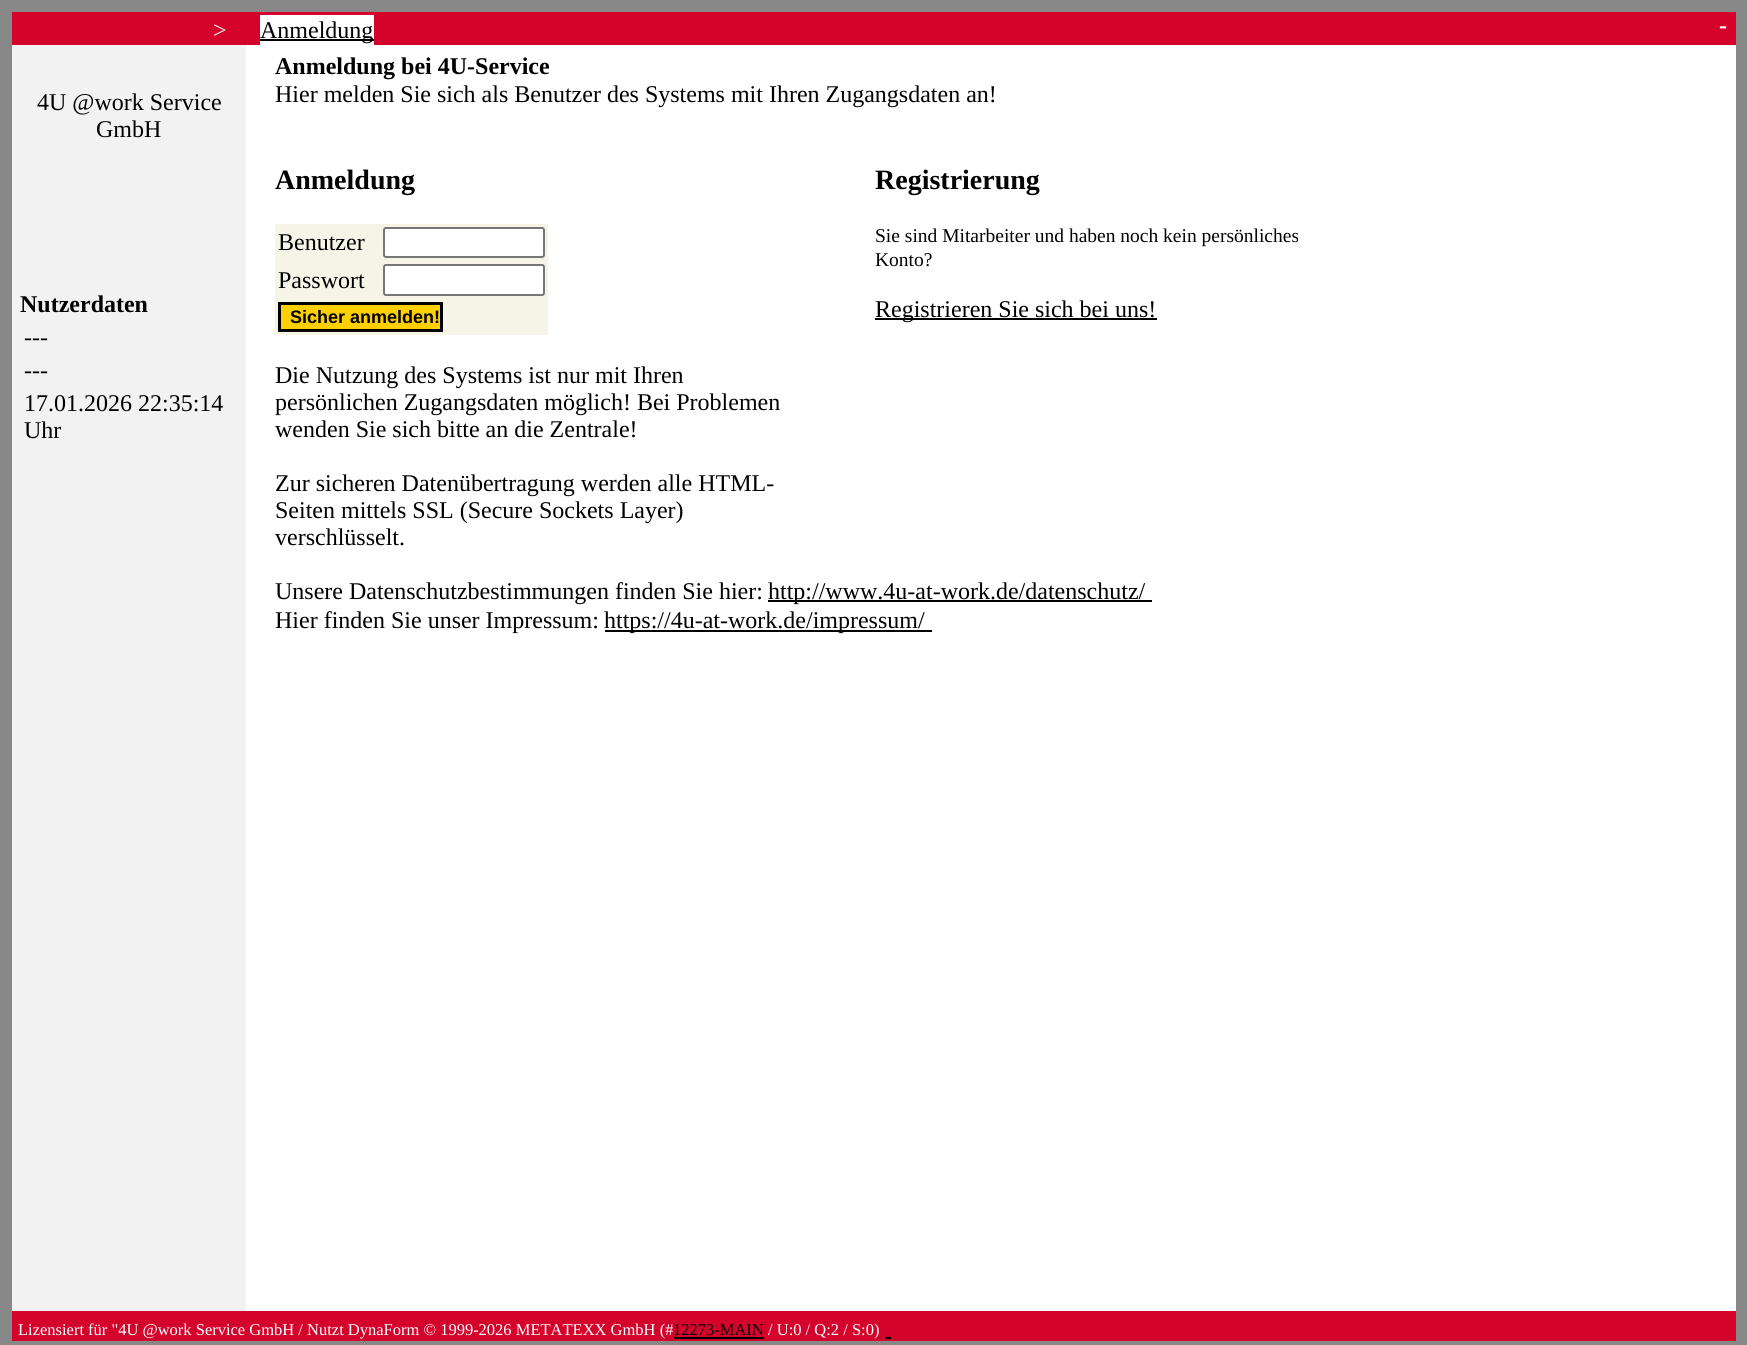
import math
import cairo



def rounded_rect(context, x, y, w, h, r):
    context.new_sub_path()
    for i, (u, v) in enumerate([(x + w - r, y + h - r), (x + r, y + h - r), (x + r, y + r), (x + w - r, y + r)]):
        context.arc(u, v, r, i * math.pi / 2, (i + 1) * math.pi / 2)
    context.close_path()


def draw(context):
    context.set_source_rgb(136 / 255, 136 / 255, 136 / 255)
    context.paint()
    context.set_source_rgb(212 / 255, 3 / 255, 43 / 255)
    context.rectangle(12, 12, 1724, 33)
    context.fill()
    context.set_source_rgb(1, 1, 1)
    context.rectangle(260, 15, 114, 30)
    context.fill()
    context.set_source_rgb(0, 0, 0)
    context.rectangle(260, 39, 114, 2)
    context.fill()
    context.set_source_rgb(1, 1, 1)
    context.rectangle(246, 45, 1490, 1266)
    context.fill()
    context.set_source_rgb(242 / 255, 242 / 255, 242 / 255)
    context.rectangle(12, 45, 234, 1266)
    context.fill()
    context.set_source_rgb(246 / 255, 243 / 255, 231 / 255)
    context.rectangle(275, 224, 273, 111)
    context.fill()
    context.set_source_rgb(1, 1, 1)
    rounded_rect(context, 384, 228, 160, 29, 2)
    context.fill_preserve()
    context.set_source_rgb(118 / 255, 118 / 255, 118 / 255)
    context.stroke()
    context.set_source_rgb(1, 1, 1)
    rounded_rect(context, 384, 265, 160, 30, 2)
    context.fill_preserve()
    context.set_source_rgb(118 / 255, 118 / 255, 118 / 255)
    context.stroke()
    context.set_source_rgb(1, 208 / 255, 0)
    context.rectangle(279.5, 303.5, 162, 27)
    context.fill_preserve()
    context.set_source_rgb(0, 0, 0)
    context.set_line_width(3)
    context.stroke()
    context.rectangle(875, 318, 282, 2)
    context.fill()
    context.rectangle(768, 600, 384, 2)
    context.fill()
    context.rectangle(605, 630, 327, 2)
    context.fill()
    context.set_source_rgb(212 / 255, 3 / 255, 43 / 255)
    context.rectangle(12, 1311, 1724, 30)
    context.fill()
    context.set_source_rgb(0, 0, 0)
    context.rectangle(674, 1337, 90, 2)
    context.fill()
    context.rectangle(885, 1337, 6, 2)
    context.fill()
    context.select_font_face("Liberation Serif")
    context.set_font_size(24)
    context.set_source_rgb(1, 1, 1)
    context.move_to(213, 38)
    context.show_text(">")
    context.set_source_rgb(0, 0, 0)
    context.move_to(260, 38)
    context.show_text("Anmeldung")
    context.select_font_face("Liberation Serif", cairo.FontSlant.NORMAL, cairo.FontWeight.BOLD)
    context.set_source_rgb(1, 1, 1)
    context.move_to(1719, 33)
    context.show_text("-")
    context.select_font_face("Liberation Serif")
    context.set_source_rgb(0, 0, 0)
    context.move_to(37, 110)
    context.show_text("4U @work Service")
    context.move_to(96, 137)
    context.show_text("GmbH")
    context.select_font_face("Liberation Serif", cairo.FontSlant.NORMAL, cairo.FontWeight.BOLD)
    context.move_to(20, 312)
    context.show_text("Nutzerdaten")
    context.select_font_face("Liberation Serif")
    context.move_to(24, 345)
    context.show_text("---")
    context.move_to(24, 378)
    context.show_text("---")
    context.move_to(24, 411)
    context.show_text("17.01.2026 22:35:14")
    context.move_to(24, 438)
    context.show_text("Uhr")
    context.select_font_face("Liberation Serif", cairo.FontSlant.NORMAL, cairo.FontWeight.BOLD)
    context.move_to(275, 74)
    context.show_text("Anmeldung bei 4U-Service")
    context.select_font_face("Liberation Serif")
    context.move_to(275, 102)
    context.show_text("Hier melden Sie sich als Benutzer des Systems mit Ihren Zugangsdaten an!")
    context.select_font_face("Liberation Serif", cairo.FontSlant.NORMAL, cairo.FontWeight.BOLD)
    context.set_font_size(28)
    context.move_to(275, 189)
    context.show_text("Anmeldung")
    context.select_font_face("Liberation Serif")
    context.set_font_size(24)
    context.move_to(278, 250)
    context.show_text("Benutzer")
    context.move_to(278, 288)
    context.show_text("Passwort")
    context.select_font_face("Liberation Sans", cairo.FontSlant.NORMAL, cairo.FontWeight.BOLD)
    context.set_font_size(18)
    context.move_to(290, 323)
    context.show_text("Sicher anmelden!")
    context.select_font_face("Liberation Serif")
    context.set_font_size(24)
    context.move_to(275, 383)
    context.show_text("Die Nutzung des Systems ist nur mit Ihren")
    context.move_to(275, 410)
    context.show_text("persönlichen Zugangsdaten möglich! Bei Problemen")
    context.move_to(275, 437)
    context.show_text("wenden Sie sich bitte an die Zentrale!")
    context.move_to(275, 491)
    context.show_text("Zur sicheren Datenübertragung werden alle HTML-")
    context.move_to(275, 518)
    context.show_text("Seiten mittels SSL (Secure Sockets Layer)")
    context.move_to(275, 545)
    context.show_text("verschlüsselt.")
    context.select_font_face("Liberation Serif", cairo.FontSlant.NORMAL, cairo.FontWeight.BOLD)
    context.set_font_size(28)
    context.move_to(875, 189)
    context.show_text("Registrierung")
    context.select_font_face("Liberation Serif")
    context.set_font_size(19.5)
    context.move_to(875, 242)
    context.show_text("Sie sind Mitarbeiter und haben noch kein persönliches")
    context.move_to(875, 266)
    context.show_text("Konto?")
    context.set_font_size(24)
    context.move_to(875, 317)
    context.show_text("Registrieren Sie sich bei uns!")
    context.move_to(275, 599)
    context.show_text("Unsere Datenschutzbestimmungen finden Sie hier:")
    context.move_to(768, 599)
    context.show_text("http://www.4u-at-work.de/datenschutz/")
    context.move_to(275, 628)
    context.show_text("Hier finden Sie unser Impressum:")
    context.move_to(604, 628)
    context.show_text("https://4u-at-work.de/impressum/")
    context.set_font_size(16.5)
    context.set_source_rgb(1, 1, 1)
    context.move_to(18, 1335)
    context.show_text("Lizensiert für \"4U @work Service GmbH / Nutzt DynaForm © 1999-2026 METATEXX GmbH (#")
    context.set_source_rgb(0, 0, 0)
    context.move_to(673, 1335)
    context.show_text("12273-MAIN")
    context.set_source_rgb(1, 1, 1)
    context.move_to(768, 1335)
    context.show_text("/ U:0 / Q:2 / S:0)")


surface = cairo.ImageSurface(cairo.Format.RGB24, 1747, 1345)
context = cairo.Context(surface)
options = cairo.FontOptions()
options.set_hint_metrics(cairo.HintMetrics.OFF)
options.set_hint_style(cairo.HintStyle.NONE)
context.set_font_options(options)
context.set_miter_limit(4)
draw(context)
surface.write_to_png("out.png")
